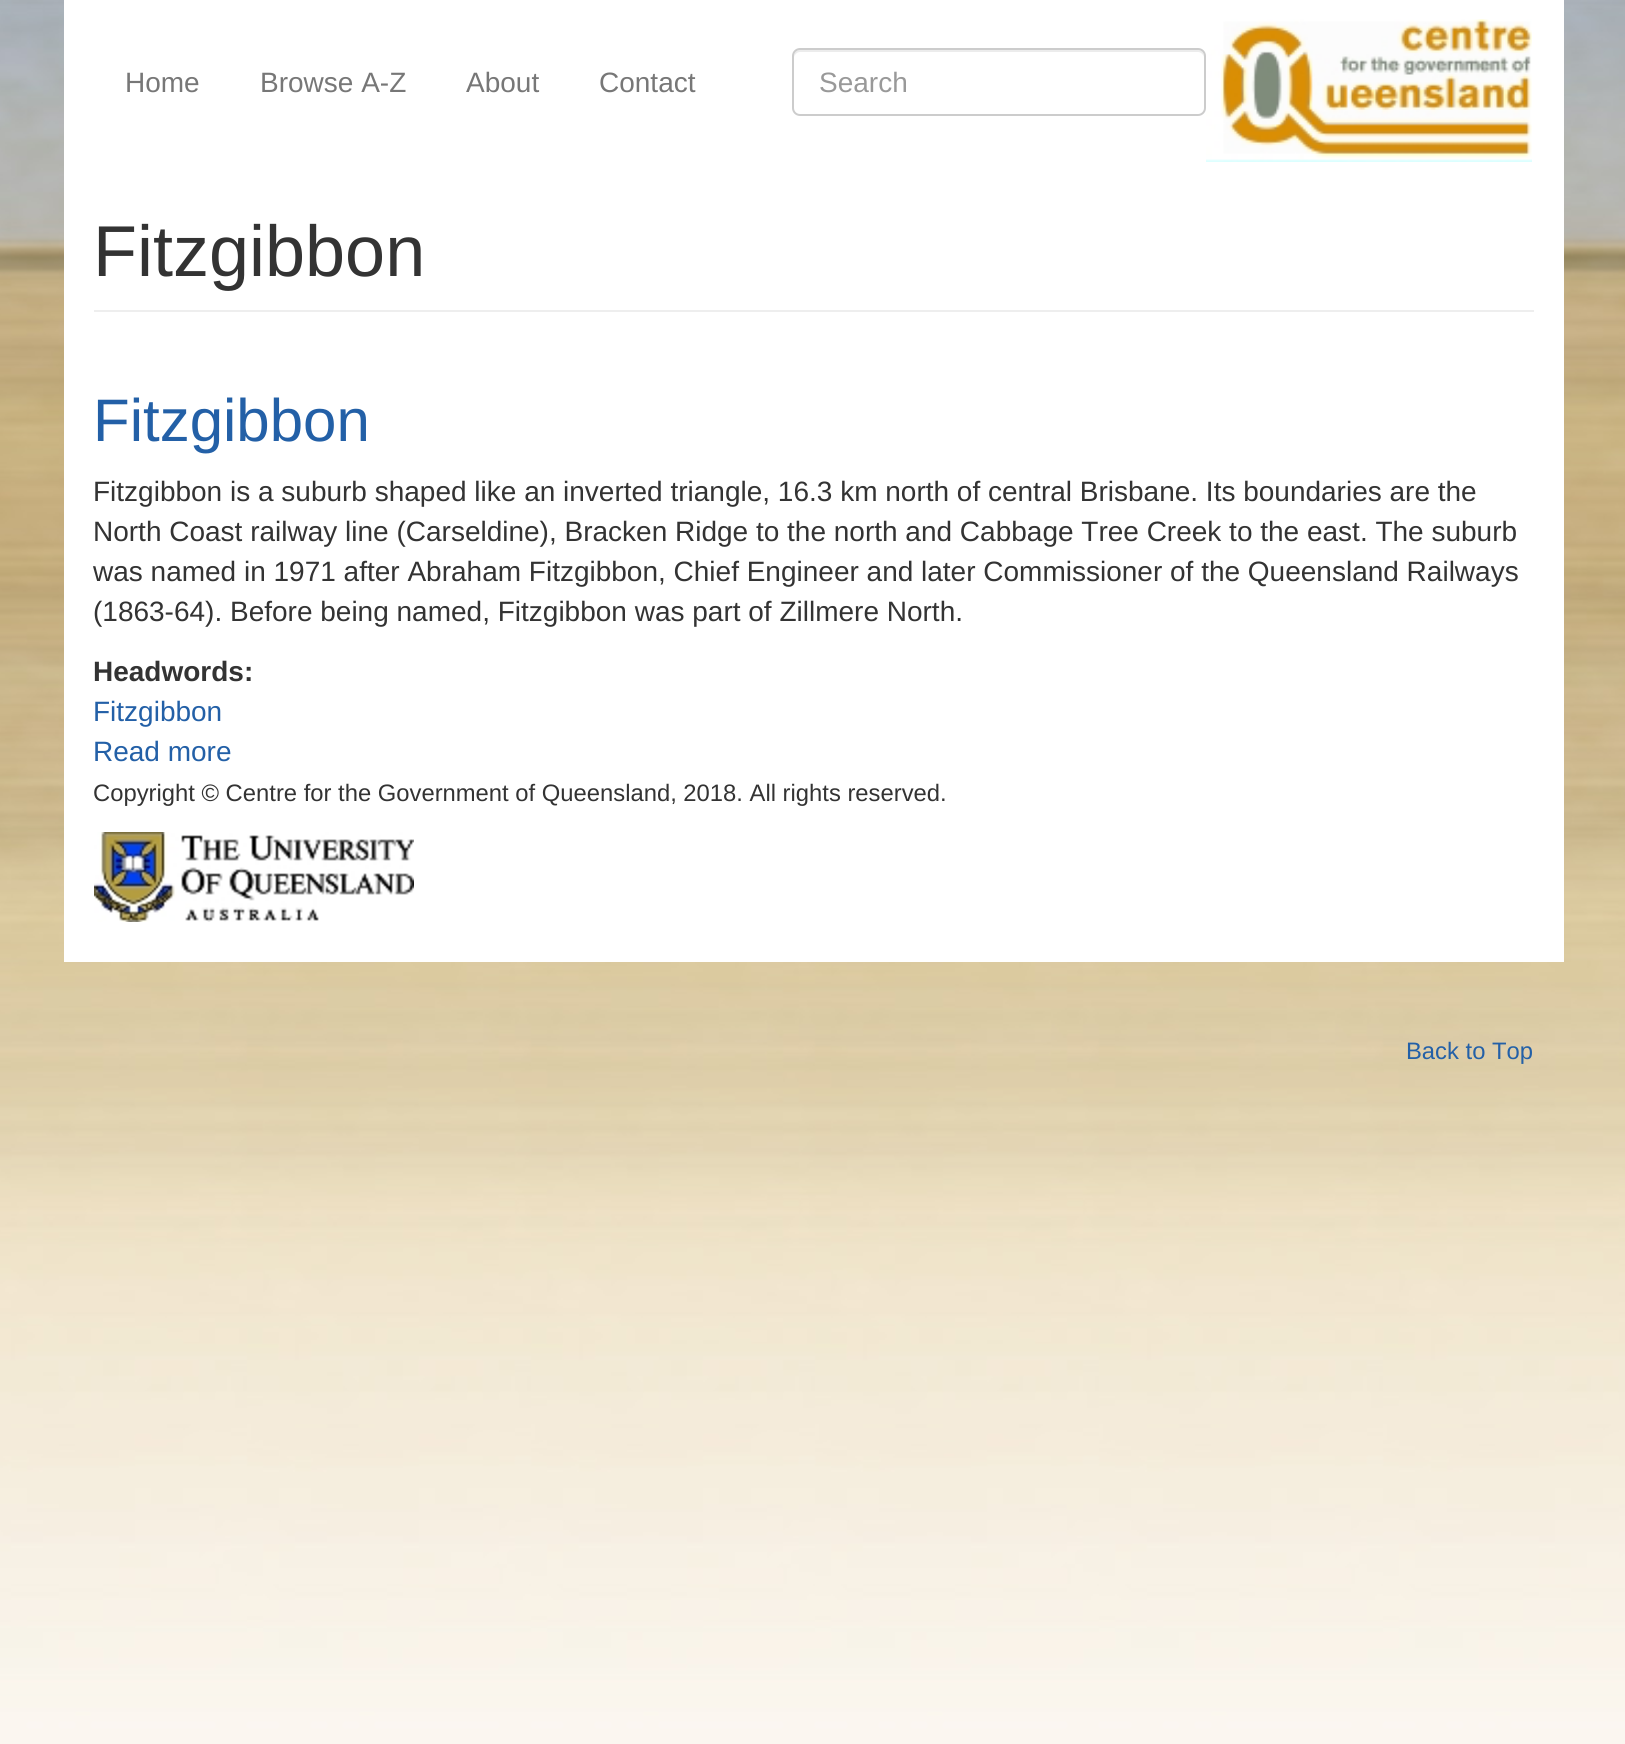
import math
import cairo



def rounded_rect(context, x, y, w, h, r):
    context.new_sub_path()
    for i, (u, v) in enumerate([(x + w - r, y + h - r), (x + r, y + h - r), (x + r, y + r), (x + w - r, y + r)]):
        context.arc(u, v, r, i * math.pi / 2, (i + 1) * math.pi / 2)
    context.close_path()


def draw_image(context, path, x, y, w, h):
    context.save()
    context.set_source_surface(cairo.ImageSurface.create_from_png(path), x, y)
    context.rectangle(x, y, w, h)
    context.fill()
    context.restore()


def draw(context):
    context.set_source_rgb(1, 1, 1)
    context.paint()
    draw_image(context, "images/1.png", 0, 0, 1625, 1744)
    context.set_source_rgb(1, 1, 1)
    context.rectangle(64, 0, 1500, 962)
    context.fill()
    context.set_source_rgb(236 / 255, 236 / 255, 236 / 255)
    context.new_path()
    context.move_to(800, 52)
    context.line_to(1198, 52)
    context.curve_to(1201, 52, 1204, 55, 1204, 58)
    context.curve_to(1204, 54, 1203, 50, 1198, 50)
    context.line_to(800, 50)
    context.curve_to(795, 50, 794, 54, 794, 58)
    context.curve_to(794, 55, 797, 52, 800, 52)
    context.close_path()
    context.fill()
    rounded_rect(context, 793, 49, 412, 66, 7)
    context.set_source_rgb(204 / 255, 204 / 255, 204 / 255)
    context.stroke()
    draw_image(context, "images/2.png", 1206, 19, 326, 143)
    context.set_source_rgb(238 / 255, 238 / 255, 238 / 255)
    context.rectangle(94, 310, 1440, 2)
    context.fill()
    draw_image(context, "images/3.png", 94, 832, 320, 90)
    context.select_font_face("Liberation Sans")
    context.set_font_size(28)
    context.set_source_rgb(119 / 255, 119 / 255, 119 / 255)
    context.move_to(125, 92)
    context.show_text("Home")
    context.move_to(260, 92)
    context.show_text("Browse A-Z")
    context.move_to(466, 92)
    context.show_text("About")
    context.move_to(599, 92)
    context.show_text("Contact")
    context.set_source_rgb(153 / 255, 153 / 255, 153 / 255)
    context.move_to(819, 92)
    context.show_text("Search")
    context.set_font_size(72)
    context.set_source_rgb(51 / 255, 51 / 255, 51 / 255)
    context.move_to(93, 276)
    context.show_text("Fitzgibbon")
    context.set_font_size(60)
    context.set_source_rgb(35 / 255, 96 / 255, 167 / 255)
    context.move_to(93, 441)
    context.show_text("Fitzgibbon")
    context.set_font_size(28)
    context.set_source_rgb(51 / 255, 51 / 255, 51 / 255)
    context.move_to(93, 501)
    context.show_text("Fitzgibbon is a suburb shaped like an inverted triangle, 16.3 km north of central Brisbane. Its boundaries are the")
    context.move_to(93, 541)
    context.show_text("North Coast railway line (Carseldine), Bracken Ridge to the north and Cabbage Tree Creek to the east. The suburb")
    context.move_to(93, 581)
    context.show_text("was named in 1971 after Abraham Fitzgibbon, Chief Engineer and later Commissioner of the Queensland Railways")
    context.move_to(93, 621)
    context.show_text("(1863-64). Before being named, Fitzgibbon was part of Zillmere North.")
    context.select_font_face("Liberation Sans", cairo.FontSlant.NORMAL, cairo.FontWeight.BOLD)
    context.move_to(93, 681)
    context.show_text("Headwords:")
    context.select_font_face("Liberation Sans")
    context.set_source_rgb(35 / 255, 96 / 255, 167 / 255)
    context.move_to(93, 721)
    context.show_text("Fitzgibbon")
    context.move_to(93, 761)
    context.show_text("Read more")
    context.set_font_size(23.8)
    context.set_source_rgb(51 / 255, 51 / 255, 51 / 255)
    context.move_to(93, 801)
    context.show_text("Copyright © Centre for the Government of Queensland, 2018. All rights reserved.")
    context.set_source_rgb(35 / 255, 96 / 255, 167 / 255)
    context.move_to(1406, 1059)
    context.show_text("Back to Top")


surface = cairo.ImageSurface(cairo.Format.RGB24, 1625, 1744)
context = cairo.Context(surface)
options = cairo.FontOptions()
options.set_hint_metrics(cairo.HintMetrics.OFF)
options.set_hint_style(cairo.HintStyle.NONE)
context.set_font_options(options)
context.set_miter_limit(4)
draw(context)
surface.write_to_png("out.png")
